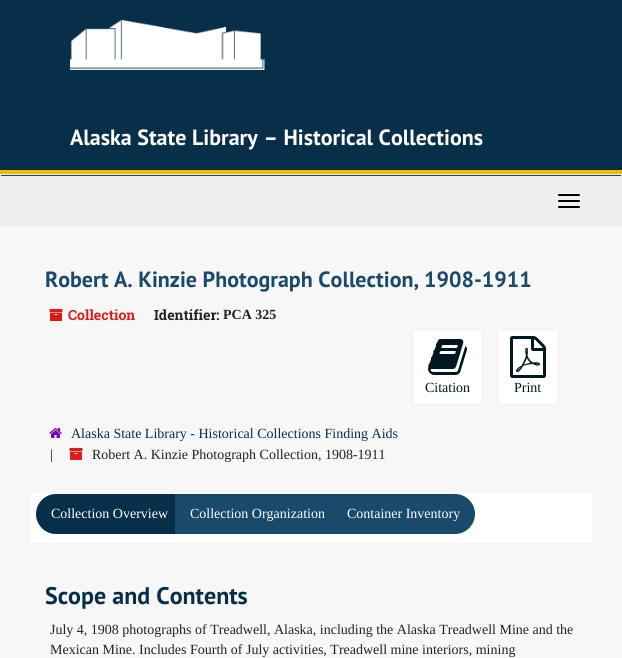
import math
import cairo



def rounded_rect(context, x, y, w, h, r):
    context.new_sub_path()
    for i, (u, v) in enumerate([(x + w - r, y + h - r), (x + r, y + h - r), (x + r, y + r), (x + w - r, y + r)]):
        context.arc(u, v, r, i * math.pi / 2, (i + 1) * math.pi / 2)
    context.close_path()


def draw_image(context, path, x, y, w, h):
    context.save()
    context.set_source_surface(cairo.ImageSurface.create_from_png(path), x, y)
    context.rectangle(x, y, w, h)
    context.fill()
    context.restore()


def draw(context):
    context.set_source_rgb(247 / 255, 247 / 255, 247 / 255)
    context.paint()
    context.set_source_rgb(7 / 255, 47 / 255, 73 / 255)
    context.rectangle(0, 0, 622, 170)
    context.fill()
    context.set_source_rgb(237 / 255, 189 / 255, 3 / 255)
    context.rectangle(0, 170, 622, 4)
    context.fill()
    draw_image(context, "images/1.png", 70, 20, 195, 50)
    context.set_source_rgb(238 / 255, 238 / 255, 238 / 255)
    context.rectangle(0, 174, 622, 53)
    context.fill()
    context.set_source_rgb(25 / 255, 74 / 255, 107 / 255)
    context.rectangle(1, 175, 620, 1)
    context.fill()
    context.set_source_rgb(0, 0, 0)
    rounded_rect(context, 558, 194, 22, 2, 1)
    context.fill()
    rounded_rect(context, 558, 200, 22, 2, 1)
    context.fill()
    rounded_rect(context, 558, 206, 22, 2, 1)
    context.fill()
    draw_image(context, "images/2.png", 49, 309, 14, 12)
    context.set_source_rgb(1, 1, 1)
    rounded_rect(context, 412.5, 329.5, 70, 75, 3.5)
    context.fill_preserve()
    context.set_source_rgb(238 / 255, 238 / 255, 238 / 255)
    context.set_line_width(1)
    context.stroke()
    draw_image(context, "images/3.png", 428, 339, 39, 36)
    context.set_source_rgb(1, 1, 1)
    rounded_rect(context, 497.5, 329.5, 61, 75, 3.5)
    context.fill_preserve()
    context.set_source_rgb(238 / 255, 238 / 255, 238 / 255)
    context.stroke()
    draw_image(context, "images/4.png", 510, 336, 36, 42)
    draw_image(context, "images/5.png", 49, 428, 13, 10)
    draw_image(context, "images/6.png", 69, 448, 14, 12)
    context.set_source_rgb(1, 1, 1)
    context.rectangle(30, 493, 562, 50)
    context.fill()
    context.set_source_rgb(7 / 255, 47 / 255, 73 / 255)
    context.new_path()
    context.move_to(56, 494)
    context.line_to(183, 494)
    context.line_to(183, 534)
    context.line_to(56, 534)
    context.curve_to(45, 534, 36, 525, 36, 514)
    context.curve_to(36, 503, 45, 494, 56, 494)
    context.close_path()
    context.fill()
    context.set_source_rgb(25 / 255, 74 / 255, 107 / 255)
    context.rectangle(175, 494, 157, 40)
    context.fill()
    context.new_path()
    context.move_to(332, 494)
    context.line_to(455, 494)
    context.curve_to(466, 494, 475, 503, 475, 514)
    context.curve_to(475, 525, 466, 534, 455, 534)
    context.line_to(332, 534)
    context.close_path()
    context.fill()
    context.select_font_face("PT Sans", cairo.FontSlant.NORMAL, cairo.FontWeight.BOLD)
    context.set_font_size(22)
    context.set_source_rgb(1, 1, 1)
    context.move_to(70, 145)
    context.show_text("Alaska State Library – Historical Collections")
    context.set_source_rgb(25 / 255, 74 / 255, 107 / 255)
    context.move_to(45, 287)
    context.show_text("Robert A. Kinzie Photograph Collection, 1908-1911")
    context.select_font_face("Roboto Slab", cairo.FontSlant.NORMAL, cairo.FontWeight.BOLD)
    context.set_font_size(14)
    context.set_source_rgb(224 / 255, 25 / 255, 25 / 255)
    context.move_to(68, 320)
    context.show_text("Collection")
    context.set_source_rgb(34 / 255, 34 / 255, 34 / 255)
    context.move_to(154, 320)
    context.show_text("Identifier:")
    context.select_font_face("Liberation Serif", cairo.FontSlant.NORMAL, cairo.FontWeight.BOLD)
    context.move_to(223, 319)
    context.show_text("PCA 325")
    context.select_font_face("Liberation Serif")
    context.set_source_rgb(0, 23 / 255, 31 / 255)
    context.move_to(425, 392)
    context.show_text("Citation")
    context.move_to(514, 392)
    context.show_text("Print")
    context.set_source_rgb(7 / 255, 47 / 255, 73 / 255)
    context.move_to(71, 438)
    context.show_text("Alaska State Library - Historical Collections Finding Aids")
    context.set_source_rgb(0, 23 / 255, 31 / 255)
    context.move_to(50, 459)
    context.show_text("|")
    context.set_source_rgb(34 / 255, 34 / 255, 34 / 255)
    context.move_to(92, 459)
    context.show_text("Robert A. Kinzie Photograph Collection, 1908-1911")
    context.set_source_rgb(1, 1, 1)
    context.move_to(51, 518)
    context.show_text("Collection Overview")
    context.move_to(190, 518)
    context.show_text("Collection Organization")
    context.move_to(347, 518)
    context.show_text("Container Inventory")
    context.select_font_face("PT Sans", cairo.FontSlant.NORMAL, cairo.FontWeight.BOLD)
    context.set_font_size(24)
    context.set_source_rgb(7 / 255, 47 / 255, 73 / 255)
    context.move_to(45, 604)
    context.show_text("Scope and Contents")
    context.select_font_face("Liberation Serif")
    context.set_font_size(14)
    context.set_source_rgb(34 / 255, 34 / 255, 34 / 255)
    context.move_to(50, 634)
    context.show_text("July 4, 1908 photographs of Treadwell, Alaska, including the Alaska Treadwell Mine and the")
    context.move_to(50, 654)
    context.show_text("Mexican Mine. Includes Fourth of July activities, Treadwell mine interiors, mining")


surface = cairo.ImageSurface(cairo.Format.RGB24, 622, 658)
context = cairo.Context(surface)
options = cairo.FontOptions()
options.set_hint_metrics(cairo.HintMetrics.OFF)
options.set_hint_style(cairo.HintStyle.NONE)
context.set_font_options(options)
context.set_miter_limit(4)
draw(context)
surface.write_to_png("out.png")
